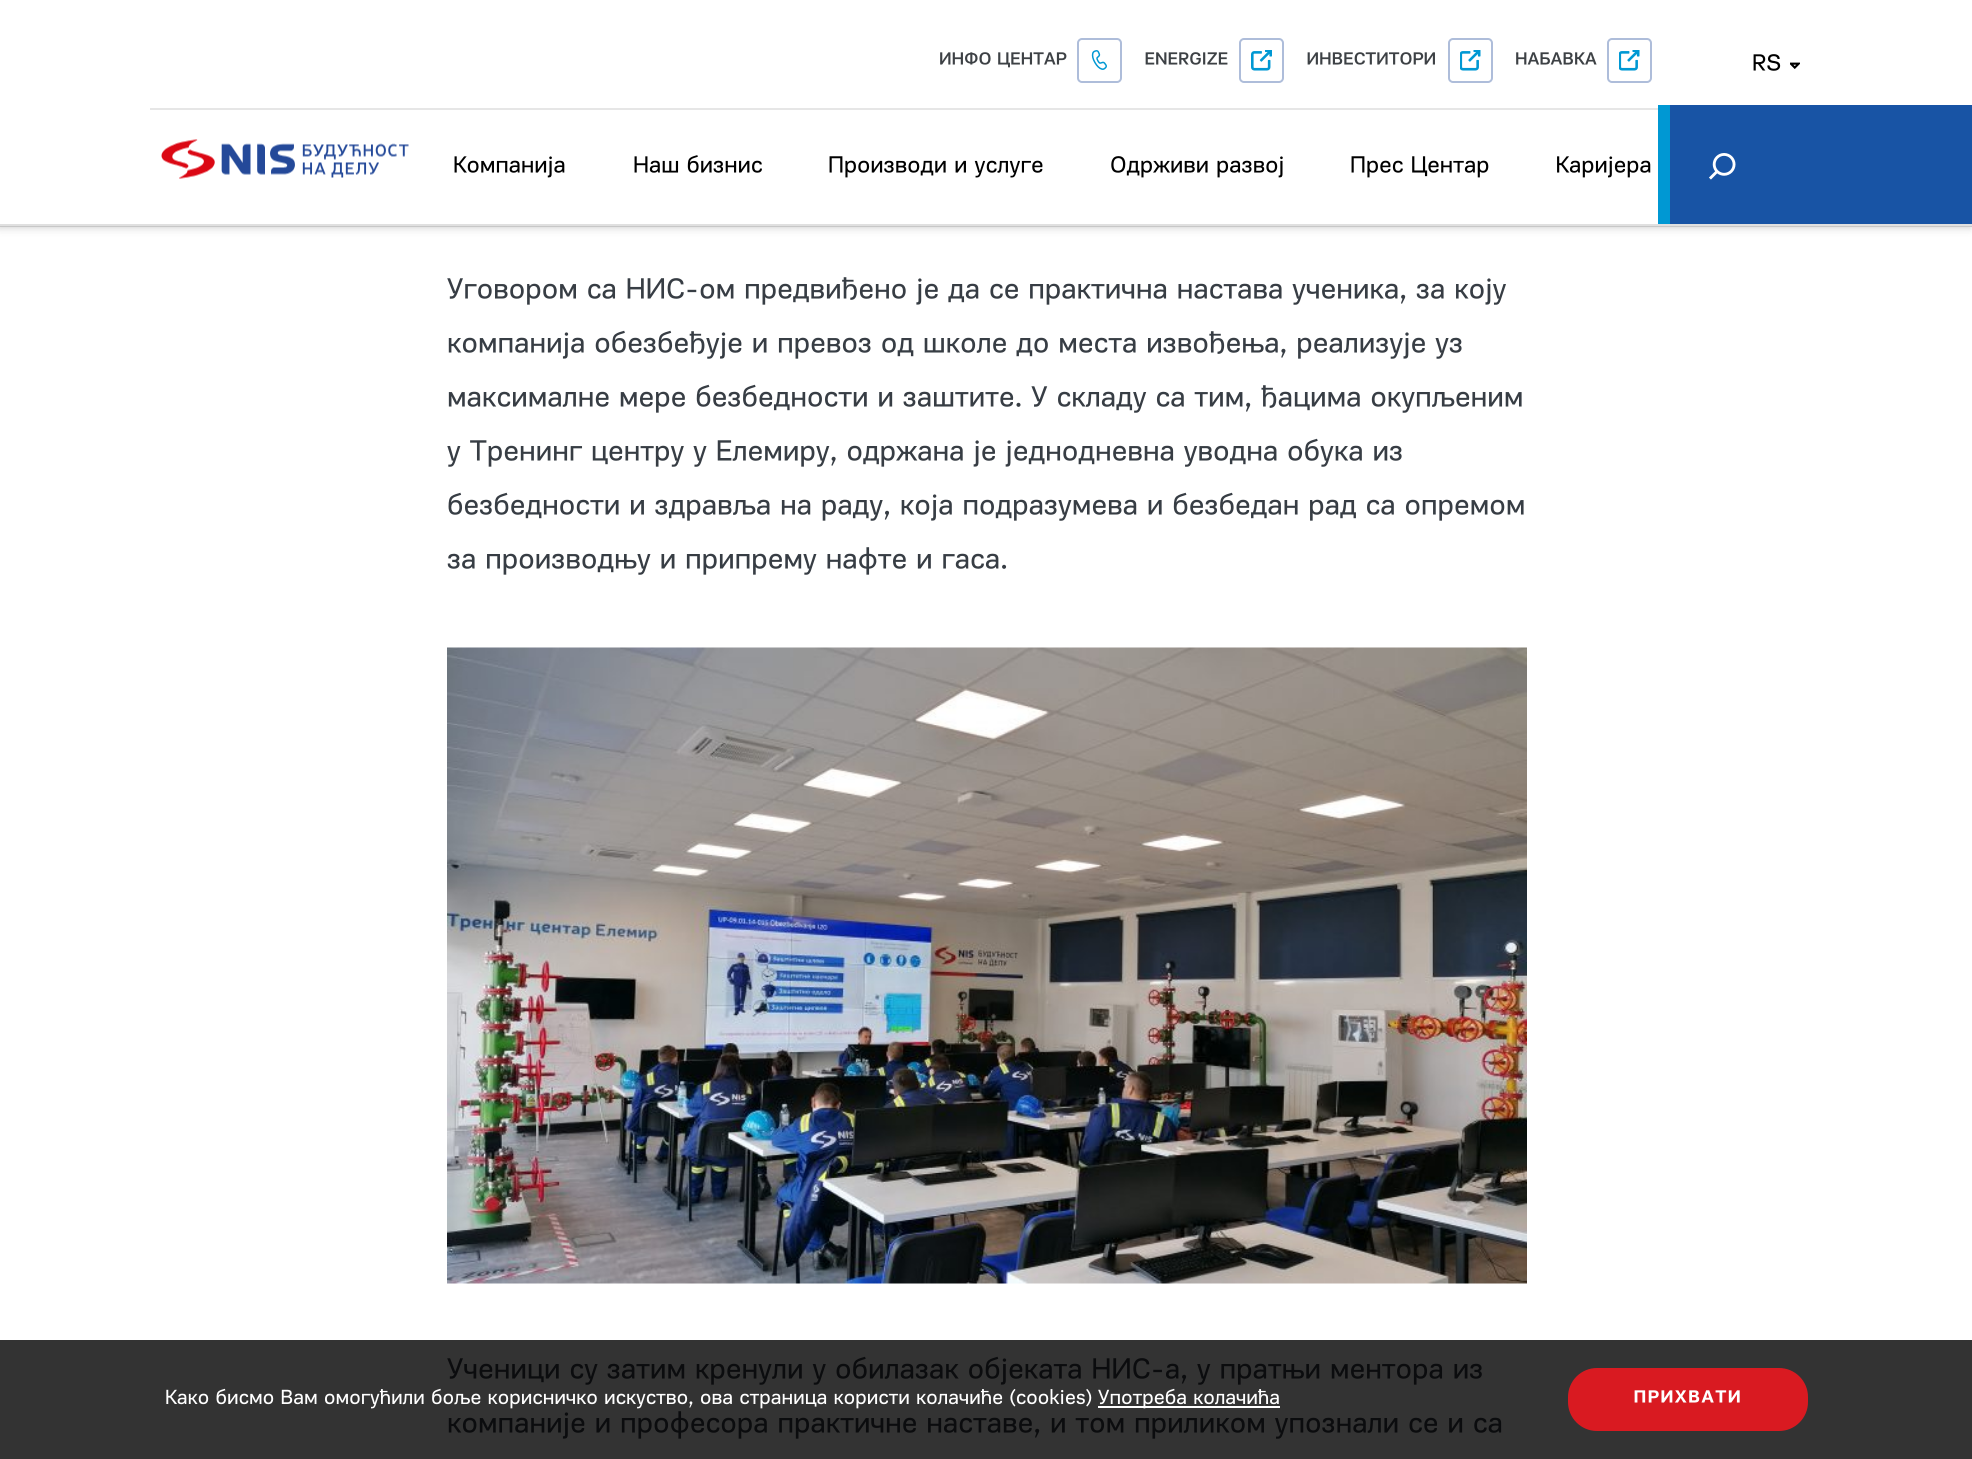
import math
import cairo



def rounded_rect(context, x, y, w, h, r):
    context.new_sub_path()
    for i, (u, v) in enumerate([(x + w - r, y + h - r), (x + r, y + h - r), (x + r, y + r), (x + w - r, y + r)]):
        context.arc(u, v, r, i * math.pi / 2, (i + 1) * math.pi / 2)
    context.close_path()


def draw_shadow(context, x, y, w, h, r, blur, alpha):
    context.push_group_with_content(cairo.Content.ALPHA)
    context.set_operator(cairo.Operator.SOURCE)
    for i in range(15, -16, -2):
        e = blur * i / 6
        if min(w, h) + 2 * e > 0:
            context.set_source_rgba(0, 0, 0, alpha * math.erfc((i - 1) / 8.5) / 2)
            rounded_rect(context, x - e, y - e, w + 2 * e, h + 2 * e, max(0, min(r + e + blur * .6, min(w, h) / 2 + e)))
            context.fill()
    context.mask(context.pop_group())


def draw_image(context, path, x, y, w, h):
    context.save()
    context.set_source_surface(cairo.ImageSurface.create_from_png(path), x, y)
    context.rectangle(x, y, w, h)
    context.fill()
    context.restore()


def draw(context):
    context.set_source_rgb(1, 1, 1)
    context.paint()
    context.set_source_rgb(51 / 255, 51 / 255, 51 / 255)
    context.rectangle(0, 1340, 1972, 119)
    context.fill()
    context.set_source_rgb(0, 0, 0)
    draw_shadow(context, -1, 0, 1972, 227, 0, 4.5, 0.22)
    context.set_source_rgb(1, 1, 1)
    context.rectangle(0, 0, 1972, 224)
    context.fill()
    context.set_source_rgb(199 / 255, 199 / 255, 199 / 255)
    context.rectangle(0, 226, 1972, 1)
    context.fill()
    context.set_source_rgb(224 / 255, 224 / 255, 224 / 255)
    context.rectangle(0, 224, 1972, 2)
    context.fill()
    context.set_source_rgb(230 / 255, 230 / 255, 230 / 255)
    context.rectangle(150, 108, 1508, 2)
    context.fill()
    draw_image(context, "images/1.png", 940, 52, 127, 16)
    rounded_rect(context, 1078, 39, 43, 43, 4)
    context.set_source_rgb(174 / 255, 189 / 255, 218 / 255)
    context.stroke()
    draw_image(context, "images/2.png", 1091, 50, 16, 20)
    draw_image(context, "images/3.png", 1145, 52, 83, 13)
    rounded_rect(context, 1240, 39, 43, 43, 4)
    context.stroke()
    draw_image(context, "images/4.png", 1251, 50, 21, 21)
    draw_image(context, "images/5.png", 1307, 52, 128, 13)
    rounded_rect(context, 1449, 39, 43, 43, 4)
    context.stroke()
    draw_image(context, "images/6.png", 1460, 50, 21, 21)
    draw_image(context, "images/7.png", 1516, 52, 81, 13)
    rounded_rect(context, 1608, 39, 43, 43, 4)
    context.stroke()
    draw_image(context, "images/6.png", 1619, 50, 21, 21)
    draw_image(context, "images/8.png", 1753, 54, 28, 17)
    draw_image(context, "images/9.png", 1790, 62, 10, 7)
    draw_image(context, "images/10.png", 161, 139, 248, 40)
    draw_image(context, "images/11.png", 454, 156, 111, 22)
    draw_image(context, "images/12.png", 634, 155, 128, 18)
    draw_image(context, "images/13.png", 829, 156, 214, 22)
    draw_image(context, "images/14.png", 1111, 156, 172, 22)
    draw_image(context, "images/15.png", 1351, 156, 138, 22)
    draw_image(context, "images/16.png", 1557, 156, 94, 22)
    context.set_source_rgb(24 / 255, 84 / 255, 165 / 255)
    context.rectangle(1670, 105, 302, 119)
    context.fill()
    context.set_source_rgb(0, 152 / 255, 211 / 255)
    context.rectangle(1658, 105, 12, 119)
    context.fill()
    draw_image(context, "images/17.png", 1709, 153, 27, 27)
    draw_image(context, "images/18.png", 447, 277, 1059, 28)
    draw_image(context, "images/19.png", 448, 330, 1014, 29)
    draw_image(context, "images/20.png", 448, 384, 1074, 29)
    draw_image(context, "images/21.png", 447, 438, 955, 29)
    draw_image(context, "images/22.png", 448, 492, 1076, 29)
    draw_image(context, "images/23.png", 447, 547, 560, 28)
    draw_image(context, "images/24.png", 447, 647, 1080, 637)
    draw_image(context, "images/25.png", 447, 1356, 1035, 29)
    draw_image(context, "images/26.png", 448, 1411, 1054, 28)
    draw_image(context, "images/27.png", 166, 1388, 926, 21)
    context.set_source_rgb(1, 1, 1)
    context.rectangle(1098, 1406, 182, 2)
    context.fill()
    draw_image(context, "images/28.png", 1098, 1388, 181, 21)
    context.set_source_rgb(217 / 255, 26 / 255, 33 / 255)
    rounded_rect(context, 1568, 1368, 240, 63, 29)
    context.fill()
    draw_image(context, "images/29.png", 1634, 1390, 106, 13)


surface = cairo.ImageSurface(cairo.Format.RGB24, 1972, 1459)
context = cairo.Context(surface)
options = cairo.FontOptions()
options.set_hint_metrics(cairo.HintMetrics.OFF)
options.set_hint_style(cairo.HintStyle.NONE)
context.set_font_options(options)
context.set_miter_limit(4)
draw(context)
surface.write_to_png("out.png")
